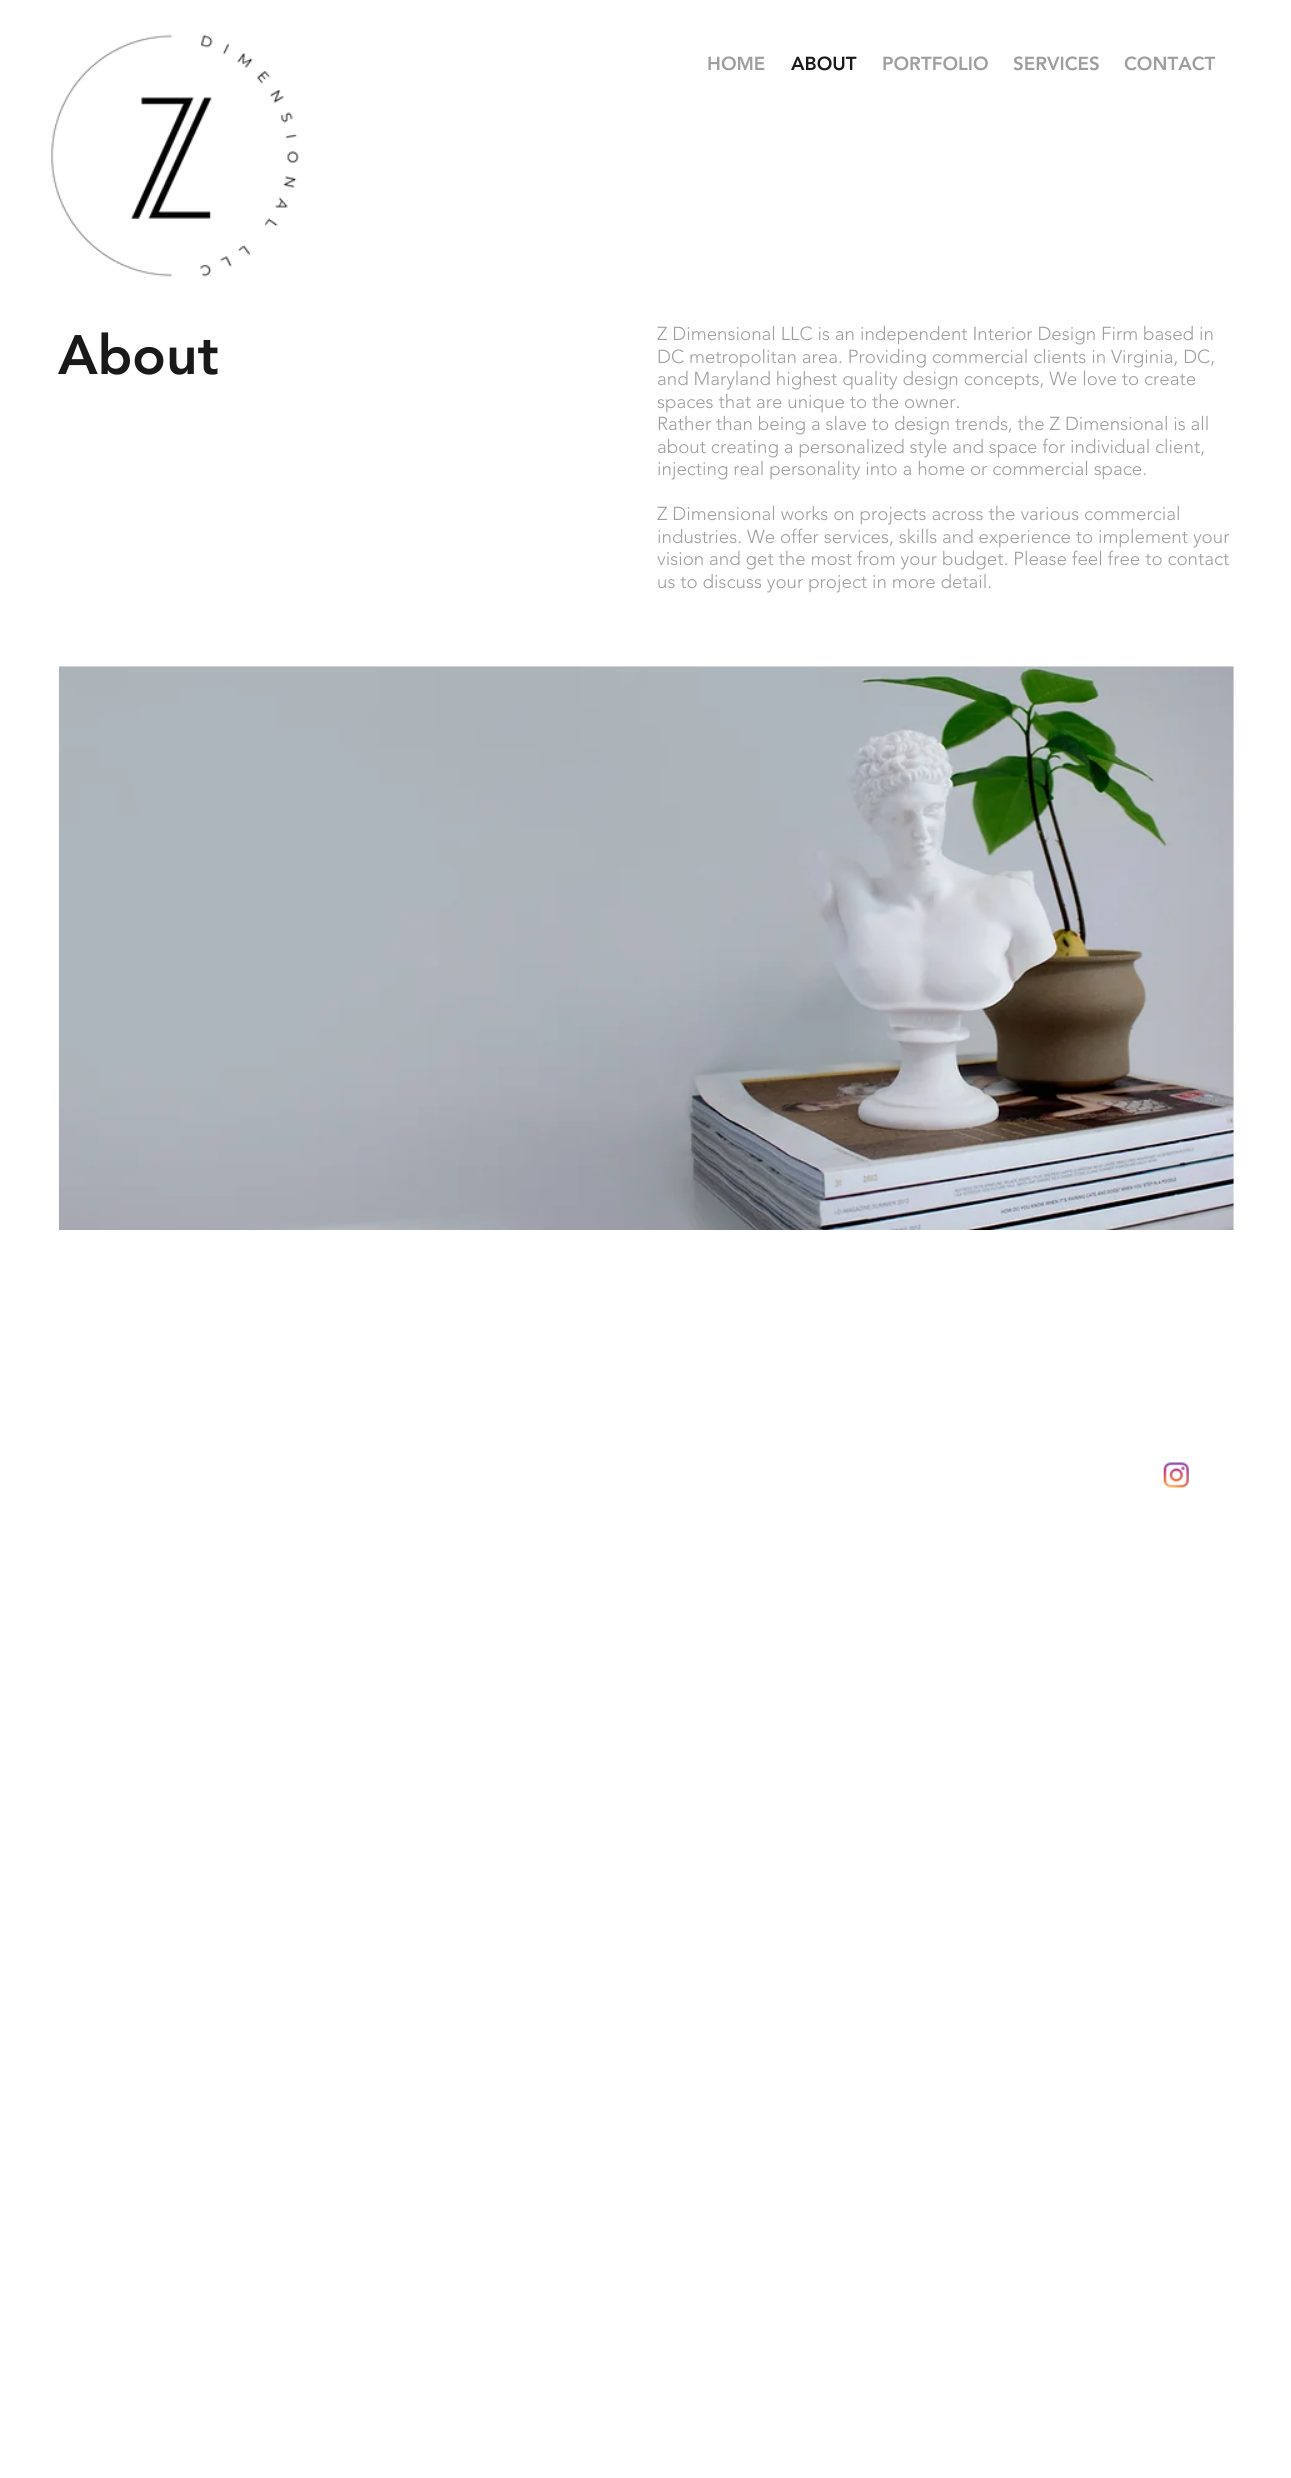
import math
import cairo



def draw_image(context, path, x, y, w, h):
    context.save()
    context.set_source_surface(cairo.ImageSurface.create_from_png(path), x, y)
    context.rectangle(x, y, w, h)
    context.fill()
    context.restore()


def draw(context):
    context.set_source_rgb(1, 1, 1)
    context.paint()
    draw_image(context, "images/1.png", 51, 34, 248, 243)
    draw_image(context, "images/2.png", 58, 666, 1176, 564)
    draw_image(context, "images/3.png", 1163, 1462, 26, 26)
    context.select_font_face("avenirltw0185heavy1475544 Black")
    context.set_font_size(18.75)
    context.set_source_rgb(158 / 255, 158 / 255, 158 / 255)
    context.move_to(707, 70)
    context.show_text("HOME")
    context.set_source_rgb(25 / 255, 25 / 255, 25 / 255)
    context.move_to(791, 70)
    context.show_text("ABOUT")
    context.set_source_rgb(158 / 255, 158 / 255, 158 / 255)
    context.move_to(882, 70)
    context.show_text("PORTFOLIO")
    context.move_to(1013, 70)
    context.show_text("SERVICES")
    context.move_to(1124, 70)
    context.show_text("CONTACT")
    context.set_font_size(55)
    context.set_source_rgb(25 / 255, 25 / 255, 25 / 255)
    context.move_to(58, 374)
    context.show_text("About")
    context.select_font_face("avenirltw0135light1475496 Light")
    context.set_font_size(18.75)
    context.set_source_rgb(158 / 255, 158 / 255, 158 / 255)
    context.move_to(657, 340)
    context.show_text("Z Dimensional LLC is an independent Interior Design Firm based in")
    context.move_to(657, 363)
    context.show_text("DC metropolitan area. Providing commercial clients in Virginia, DC,")
    context.move_to(657, 385)
    context.show_text("and Maryland highest quality design concepts, We love to create")
    context.move_to(657, 408)
    context.show_text("spaces that are unique to the owner.")
    context.move_to(657, 430)
    context.show_text("Rather than being a slave to design trends, the Z Dimensional is all")
    context.move_to(657, 453)
    context.show_text("about creating a personalized style and space for individual client,")
    context.move_to(657, 475)
    context.show_text("injecting real personality into a home or commercial space.")
    context.move_to(657, 520)
    context.show_text("Z Dimensional works on projects across the various commercial")
    context.move_to(657, 543)
    context.show_text("industries. We offer services, skills and experience to implement your")
    context.move_to(657, 565)
    context.show_text("vision and get the most from your budget. Please feel free to contact")
    context.move_to(657, 588)
    context.show_text("us to discuss your project in more detail.")


surface = cairo.ImageSurface(cairo.Format.RGB24, 1291, 2478)
context = cairo.Context(surface)
options = cairo.FontOptions()
options.set_hint_metrics(cairo.HintMetrics.OFF)
options.set_hint_style(cairo.HintStyle.NONE)
context.set_font_options(options)
context.set_miter_limit(4)
draw(context)
surface.write_to_png("out.png")
